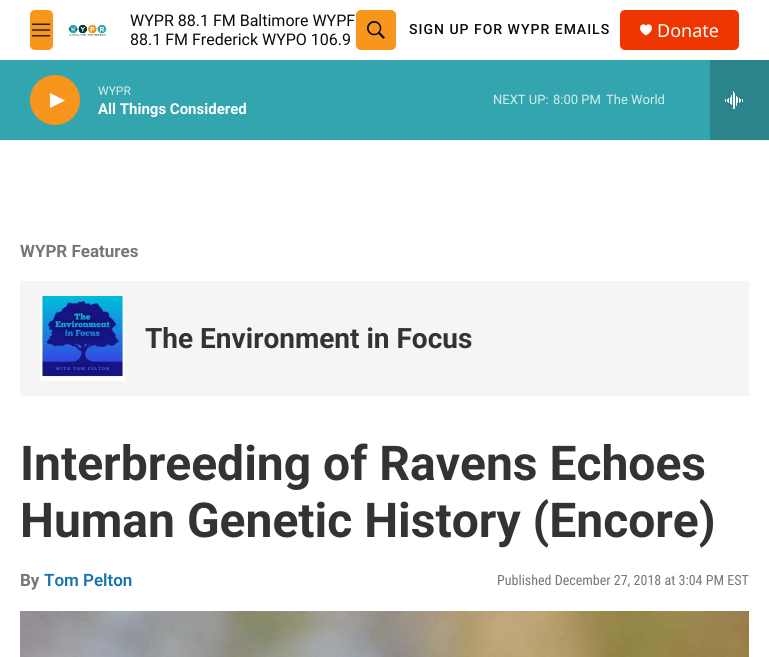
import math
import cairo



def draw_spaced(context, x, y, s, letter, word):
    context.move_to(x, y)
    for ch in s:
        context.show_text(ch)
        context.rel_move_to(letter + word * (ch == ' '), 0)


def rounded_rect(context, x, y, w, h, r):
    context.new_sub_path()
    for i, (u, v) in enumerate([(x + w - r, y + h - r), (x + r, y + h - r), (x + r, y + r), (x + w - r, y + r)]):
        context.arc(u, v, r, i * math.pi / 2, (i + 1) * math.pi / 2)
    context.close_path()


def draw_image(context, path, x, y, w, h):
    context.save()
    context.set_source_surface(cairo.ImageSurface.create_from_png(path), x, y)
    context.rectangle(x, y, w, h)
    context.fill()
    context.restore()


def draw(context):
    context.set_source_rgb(1, 1, 1)
    context.paint()
    context.set_source_rgb(245 / 255, 245 / 255, 245 / 255)
    context.rectangle(0, 140, 769, 1)
    context.fill()
    context.set_source_rgb(248 / 255, 149 / 255, 29 / 255)
    rounded_rect(context, 30, 10, 23, 40, 5)
    context.fill()
    draw_image(context, "images/1.png", 32, 23, 18, 14)
    draw_image(context, "images/2.png", 68, 24, 39, 12)
    rounded_rect(context, 356, 10, 40, 40, 5)
    context.fill()
    draw_image(context, "images/3.png", 367, 21, 18, 18)
    context.set_source_rgb(239 / 255, 54 / 255, 0)
    rounded_rect(context, 620, 10, 119, 40, 5)
    context.fill()
    context.set_source_rgb(1, 1, 1)
    context.new_path()
    context.move_to(646, 26)
    context.curve_to(644, 21, 633.5, 28, 646, 35.5)
    context.curve_to(658.5, 28, 648, 21, 646, 26)
    context.close_path()
    context.fill()
    context.set_source_rgb(51 / 255, 165 / 255, 174 / 255)
    context.rectangle(0, 60, 710, 80)
    context.fill()
    context.set_source_rgb(248 / 255, 149 / 255, 29 / 255)
    context.arc(55, 100, 25, 0, 2 * math.pi)
    context.fill()
    context.set_source_rgb(1, 1, 1)
    context.new_path()
    context.move_to(50, 93)
    context.line_to(65, 100.5)
    context.line_to(50, 108)
    context.close_path()
    context.fill()
    context.set_source_rgb(41 / 255, 132 / 255, 139 / 255)
    context.rectangle(710, 60, 59, 80)
    context.fill()
    draw_image(context, "images/4.png", 725, 91, 18, 18)
    context.set_source_rgb(245 / 255, 245 / 255, 245 / 255)
    context.rectangle(20, 281, 729, 115)
    context.fill()
    draw_image(context, "images/5.png", 40, 296, 85, 85)
    draw_image(context, "images/6.png", 20, 611, 729, 46)
    context.select_font_face("Roboto")
    context.set_font_size(16)
    context.set_source_rgb(13 / 255, 11 / 255, 11 / 255)
    context.move_to(130, 26)
    context.show_text("WYPR 88.1 FM Baltimore WYPF")
    context.move_to(130, 45)
    context.show_text("88.1 FM Frederick WYPO 106.9")
    context.select_font_face("Roboto Medium")
    context.set_font_size(14)
    draw_spaced(context, 409, 34, "SIGN UP FOR WYPR EMAILS", 1, 0)
    context.select_font_face("Noto Sans")
    context.set_font_size(18)
    context.set_source_rgb(1, 1, 1)
    context.move_to(657, 37)
    context.show_text("Donate")
    context.select_font_face("Roboto")
    context.set_font_size(12)
    context.set_source_rgb(214 / 255, 237 / 255, 239 / 255)
    context.move_to(98, 95)
    context.show_text("WYPR")
    context.select_font_face("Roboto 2", cairo.FontSlant.NORMAL, cairo.FontWeight.BOLD)
    context.set_font_size(15)
    context.set_source_rgb(1, 1, 1)
    context.move_to(98, 114)
    context.show_text("All Things Considered")
    context.select_font_face("Roboto")
    context.set_font_size(13)
    context.set_source_rgb(214 / 255, 237 / 255, 239 / 255)
    context.move_to(493, 104)
    context.show_text("NEXT UP:")
    context.move_to(553, 104)
    context.show_text("8:00 PM")
    context.move_to(606, 104)
    context.show_text("The World")
    context.select_font_face("Roboto", cairo.FontSlant.NORMAL, cairo.FontWeight.BOLD)
    context.set_font_size(17)
    context.set_source_rgb(118 / 255, 118 / 255, 118 / 255)
    context.move_to(20, 257)
    context.show_text("WYPR Features")
    context.set_font_size(28)
    context.set_source_rgb(51 / 255, 51 / 255, 51 / 255)
    context.move_to(145, 348)
    context.show_text("The Environment in Focus")
    context.set_font_size(48)
    context.move_to(20, 480)
    context.show_text("Interbreeding of Ravens Echoes")
    context.move_to(20, 537)
    context.show_text("Human Genetic History (Encore)")
    context.set_font_size(17)
    context.set_source_rgb(118 / 255, 118 / 255, 118 / 255)
    context.move_to(20, 586)
    context.show_text("By")
    context.select_font_face("Roboto SemiBold")
    context.set_source_rgb(23 / 255, 114 / 255, 176 / 255)
    context.move_to(44, 586)
    context.show_text("Tom Pelton")
    context.select_font_face("Roboto Condensed")
    context.set_font_size(14)
    context.set_source_rgb(118 / 255, 118 / 255, 118 / 255)
    context.move_to(497, 585)
    context.show_text("Published December 27, 2018 at 3:04 PM EST")


surface = cairo.ImageSurface(cairo.Format.RGB24, 769, 657)
context = cairo.Context(surface)
options = cairo.FontOptions()
options.set_hint_metrics(cairo.HintMetrics.OFF)
options.set_hint_style(cairo.HintStyle.NONE)
context.set_font_options(options)
context.set_miter_limit(4)
draw(context)
surface.write_to_png("out.png")
